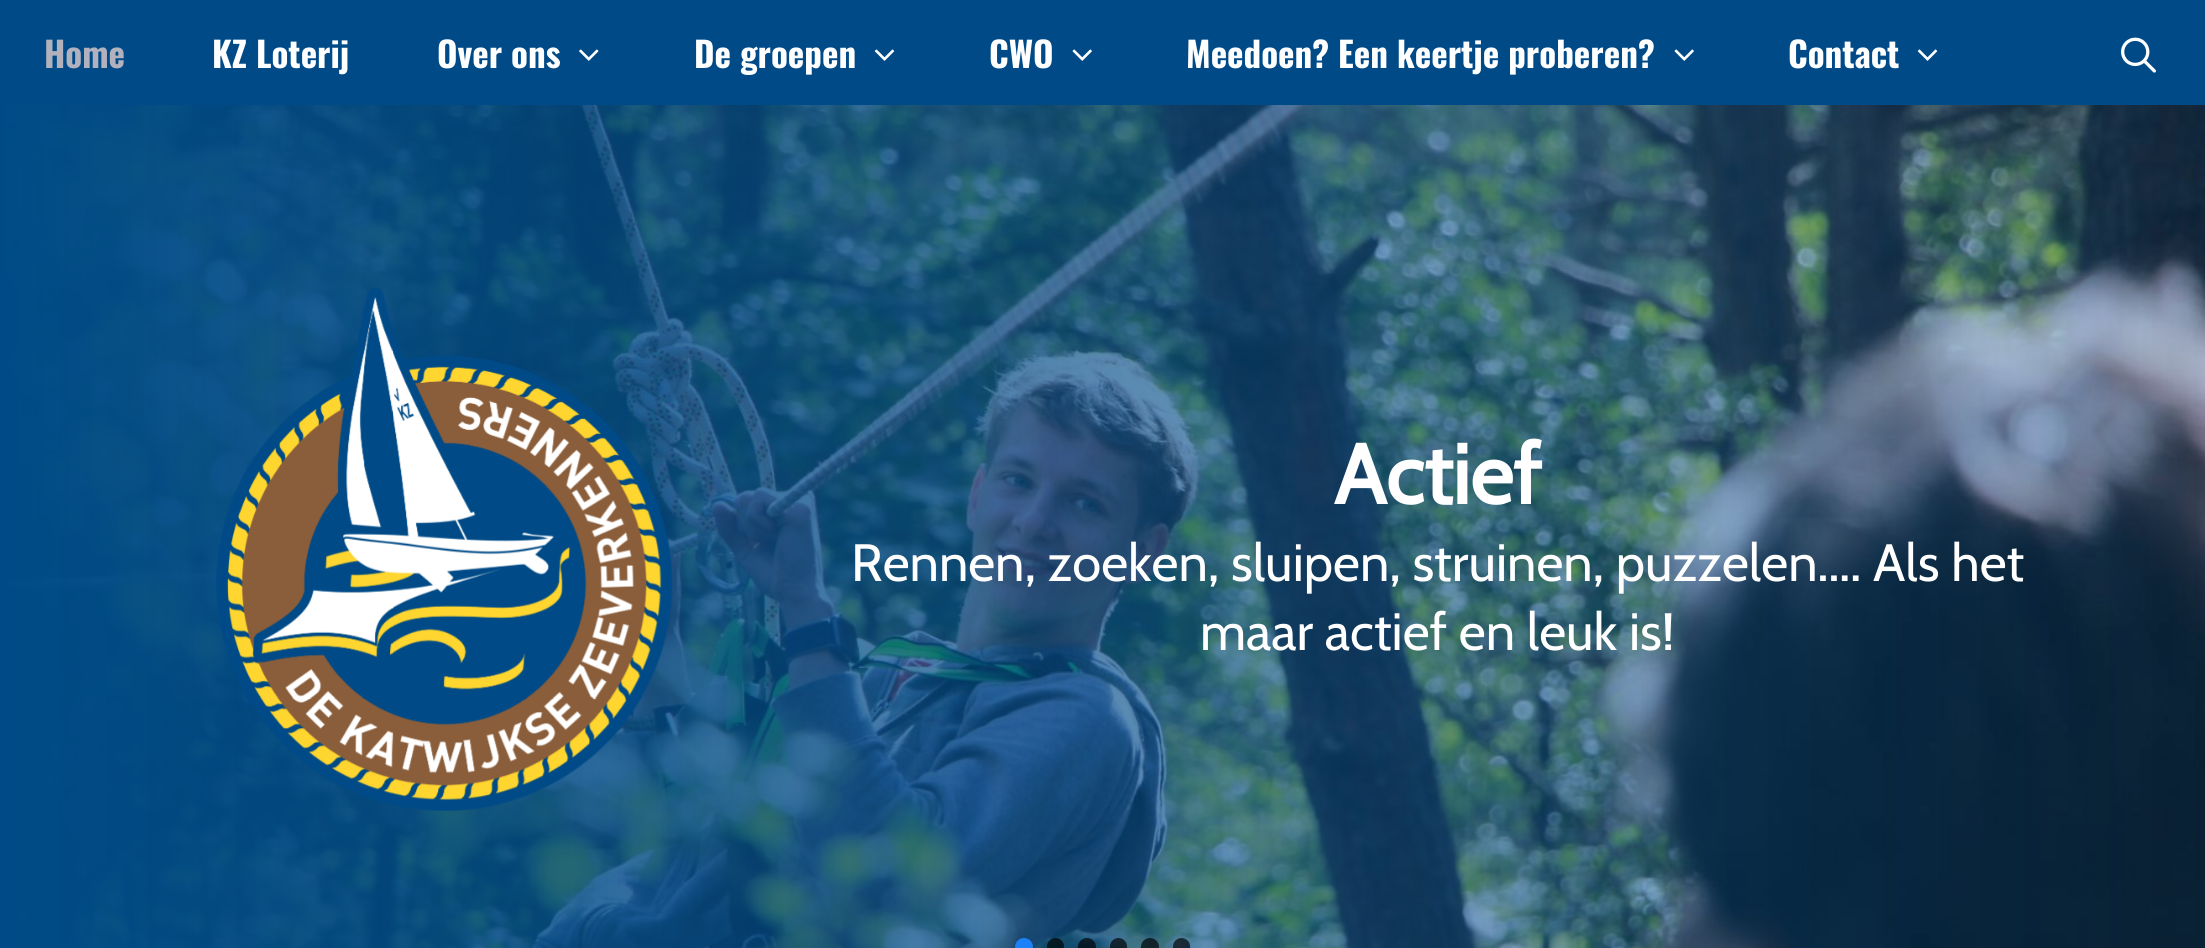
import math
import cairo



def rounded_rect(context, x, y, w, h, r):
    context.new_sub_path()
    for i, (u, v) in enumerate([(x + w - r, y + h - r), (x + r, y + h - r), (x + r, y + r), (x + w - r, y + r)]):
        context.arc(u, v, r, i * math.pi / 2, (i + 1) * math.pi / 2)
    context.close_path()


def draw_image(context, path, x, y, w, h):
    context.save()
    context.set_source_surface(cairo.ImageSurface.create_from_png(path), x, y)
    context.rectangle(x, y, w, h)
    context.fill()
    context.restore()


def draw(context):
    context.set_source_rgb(0, 75 / 255, 135 / 255)
    context.paint()
    draw_image(context, "images/1.png", 579, 49, 20, 12)
    draw_image(context, "images/2.png", 874, 49, 21, 12)
    draw_image(context, "images/3.png", 1072, 49, 20, 12)
    draw_image(context, "images/3.png", 1674, 49, 20, 12)
    draw_image(context, "images/2.png", 1917, 49, 21, 12)
    draw_image(context, "images/4.png", 2121, 37, 35, 36)
    draw_image(context, "images/5.png", 0, 105, 2205, 843)
    draw_image(context, "images/6.png", 216, 288, 457, 523)
    context.set_source_rgb(29 / 255, 129 / 255, 249 / 255)
    context.arc(1024, 947, 9, 0, 2 * math.pi)
    context.fill()
    context.set_source_rgba(0, 0, 0, 0.67)
    rounded_rect(context, 1047, 938, 17, 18, 8.5)
    context.fill()
    context.arc(1087, 947, 9, 0, 2 * math.pi)
    context.fill()
    rounded_rect(context, 1110, 938, 17, 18, 8.5)
    context.fill()
    context.arc(1150, 947, 9, 0, 2 * math.pi)
    context.fill()
    rounded_rect(context, 1173, 938, 17, 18, 8.5)
    context.fill()
    context.select_font_face("Oswald", cairo.FontSlant.NORMAL, cairo.FontWeight.BOLD)
    context.set_font_size(35)
    context.set_source_rgb(178 / 255, 178 / 255, 190 / 255)
    context.move_to(44, 68)
    context.show_text("Home")
    context.set_source_rgb(1, 1, 1)
    context.move_to(212, 68)
    context.show_text("KZ Loterij")
    context.move_to(437, 68)
    context.show_text("Over ons")
    context.move_to(694, 68)
    context.show_text("De groepen")
    context.move_to(989, 68)
    context.show_text("CWO")
    context.move_to(1186, 68)
    context.show_text("Meedoen? Een keertje proberen?")
    context.move_to(1788, 68)
    context.show_text("Contact")
    context.select_font_face("Cabin", cairo.FontSlant.NORMAL, cairo.FontWeight.BOLD)
    context.set_font_size(84)
    context.move_to(1334, 504)
    context.show_text("Actief")
    context.select_font_face("Cabin")
    context.set_font_size(52.5)
    context.move_to(851, 581)
    context.show_text("Rennen, zoeken, sluipen, struinen, puzzelen.... Als het")
    context.move_to(1200, 650)
    context.show_text("maar actief en leuk is!")


surface = cairo.ImageSurface(cairo.Format.RGB24, 2205, 948)
context = cairo.Context(surface)
options = cairo.FontOptions()
options.set_hint_metrics(cairo.HintMetrics.OFF)
options.set_hint_style(cairo.HintStyle.NONE)
context.set_font_options(options)
context.set_miter_limit(4)
draw(context)
surface.write_to_png("out.png")
